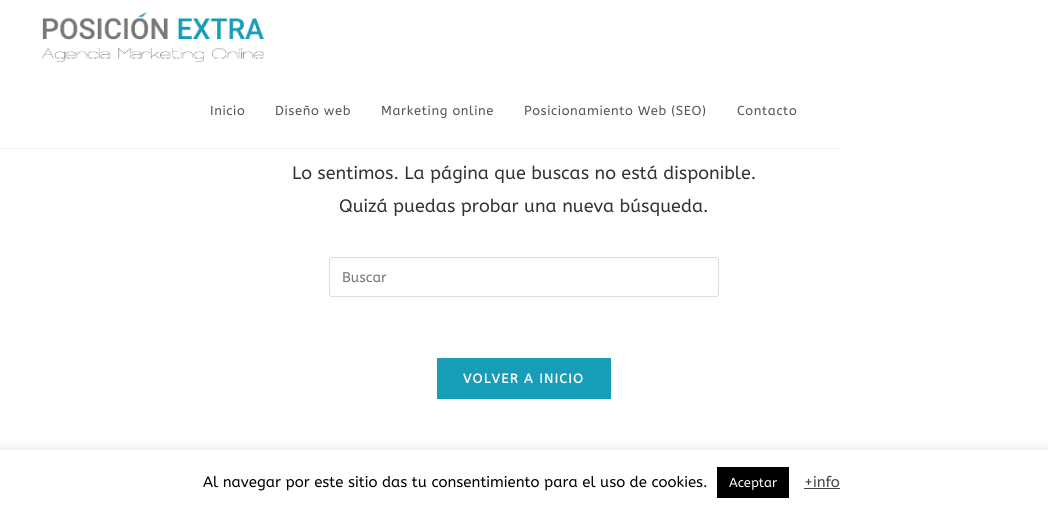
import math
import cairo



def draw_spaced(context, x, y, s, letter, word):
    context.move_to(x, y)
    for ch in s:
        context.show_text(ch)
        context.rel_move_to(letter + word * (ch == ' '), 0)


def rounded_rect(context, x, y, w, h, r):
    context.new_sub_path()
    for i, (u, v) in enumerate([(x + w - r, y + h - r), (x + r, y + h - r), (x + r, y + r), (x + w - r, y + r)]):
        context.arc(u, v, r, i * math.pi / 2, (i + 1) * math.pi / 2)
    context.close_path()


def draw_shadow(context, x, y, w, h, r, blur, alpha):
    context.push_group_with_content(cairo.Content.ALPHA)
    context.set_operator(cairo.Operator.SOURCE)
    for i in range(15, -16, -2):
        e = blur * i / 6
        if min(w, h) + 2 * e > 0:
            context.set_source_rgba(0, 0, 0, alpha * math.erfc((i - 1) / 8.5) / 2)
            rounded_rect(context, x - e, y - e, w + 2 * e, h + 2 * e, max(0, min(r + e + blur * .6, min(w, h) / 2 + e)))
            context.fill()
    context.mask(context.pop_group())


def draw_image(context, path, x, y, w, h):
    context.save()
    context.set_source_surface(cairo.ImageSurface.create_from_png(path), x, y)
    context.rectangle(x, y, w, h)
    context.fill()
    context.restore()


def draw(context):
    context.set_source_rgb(1, 1, 1)
    context.paint()
    context.set_source_rgb(241 / 255, 241 / 255, 241 / 255)
    context.rectangle(0, 148, 839, 1)
    context.fill()
    draw_image(context, "images/1.png", 42, 12, 222, 50)
    rounded_rect(context, 329.5, 257.5, 389, 39, 2.5)
    context.set_source_rgb(221 / 255, 221 / 255, 221 / 255)
    context.set_line_width(1)
    context.stroke()
    context.set_source_rgb(23 / 255, 157 / 255, 183 / 255)
    context.rectangle(437, 358, 174, 41)
    context.fill()
    context.set_source_rgb(172 / 255, 171 / 255, 171 / 255)
    draw_shadow(context, 0, 449, 1048, 65, 0, 5, 0.3)
    context.set_source_rgb(1, 1, 1)
    context.rectangle(0, 450, 1048, 65)
    context.fill()
    context.set_source_rgb(0, 0, 0)
    context.rectangle(717, 467, 72, 31)
    context.fill()
    context.set_source_rgb(68 / 255, 68 / 255, 68 / 255)
    context.rectangle(804, 488, 36, 1)
    context.fill()
    context.select_font_face("ABeeZee")
    context.set_font_size(13)
    context.set_source_rgb(85 / 255, 85 / 255, 85 / 255)
    draw_spaced(context, 210, 115, "Inicio", 0.6, 0)
    draw_spaced(context, 275, 115, "Diseño web", 0.6, 0)
    draw_spaced(context, 381, 115, "Marketing online", 0.6, 0)
    draw_spaced(context, 524, 115, "Posicionamiento Web (SEO)", 0.6, 0)
    draw_spaced(context, 737, 115, "Contacto", 0.6, 0)
    context.set_font_size(18)
    context.set_source_rgb(51 / 255, 51 / 255, 51 / 255)
    context.move_to(292, 179)
    context.show_text("Lo sentimos. La página que buscas no está disponible.")
    context.move_to(339, 212)
    context.show_text("Quizá puedas probar una nueva búsqueda.")
    context.set_font_size(14)
    context.set_source_rgb(117 / 255, 117 / 255, 117 / 255)
    context.move_to(342, 282)
    context.show_text("Buscar")
    context.select_font_face("ABeeZee", cairo.FontSlant.NORMAL, cairo.FontWeight.BOLD)
    context.set_font_size(13)
    context.set_source_rgb(1, 1, 1)
    draw_spaced(context, 463, 383, "VOLVER A INICIO", 1.25, 0)
    context.select_font_face("ABeeZee")
    context.set_font_size(15)
    context.set_source_rgb(0, 0, 0)
    context.move_to(203, 487)
    context.show_text("Al navegar por este sitio das tu consentimiento para el uso de cookies.")
    context.set_font_size(13)
    context.set_source_rgb(1, 1, 1)
    context.move_to(729, 487)
    context.show_text("Aceptar")
    context.set_font_size(15)
    context.set_source_rgb(68 / 255, 68 / 255, 68 / 255)
    context.move_to(804, 487)
    context.show_text("+info")


surface = cairo.ImageSurface(cairo.Format.RGB24, 1048, 515)
context = cairo.Context(surface)
options = cairo.FontOptions()
options.set_hint_metrics(cairo.HintMetrics.OFF)
options.set_hint_style(cairo.HintStyle.NONE)
context.set_font_options(options)
context.set_miter_limit(4)
draw(context)
surface.write_to_png("out.png")
